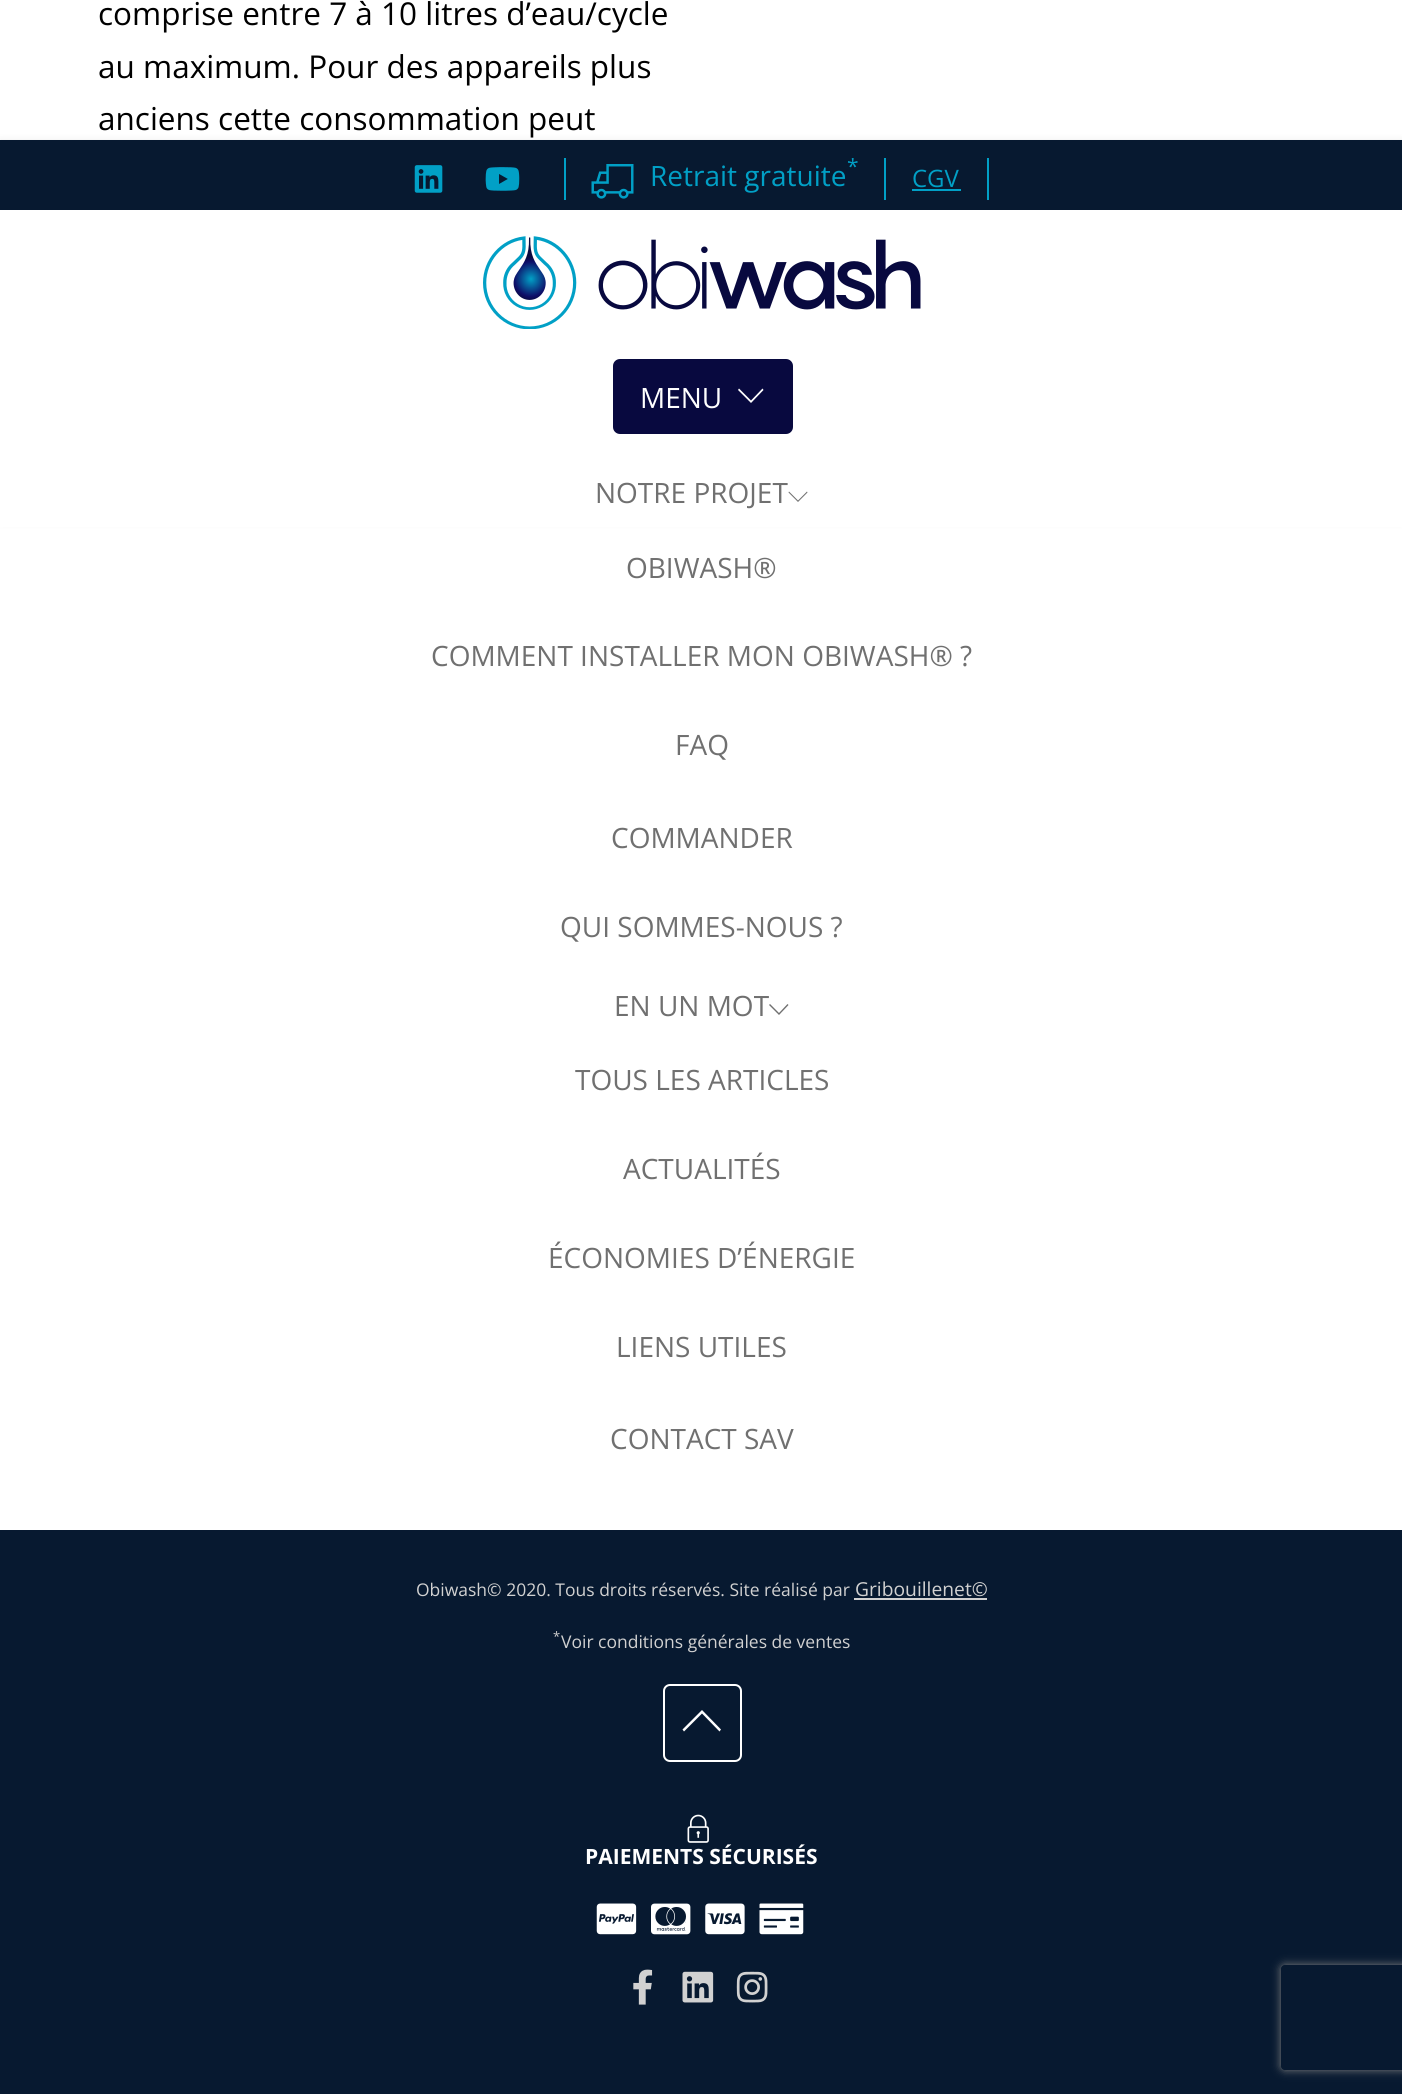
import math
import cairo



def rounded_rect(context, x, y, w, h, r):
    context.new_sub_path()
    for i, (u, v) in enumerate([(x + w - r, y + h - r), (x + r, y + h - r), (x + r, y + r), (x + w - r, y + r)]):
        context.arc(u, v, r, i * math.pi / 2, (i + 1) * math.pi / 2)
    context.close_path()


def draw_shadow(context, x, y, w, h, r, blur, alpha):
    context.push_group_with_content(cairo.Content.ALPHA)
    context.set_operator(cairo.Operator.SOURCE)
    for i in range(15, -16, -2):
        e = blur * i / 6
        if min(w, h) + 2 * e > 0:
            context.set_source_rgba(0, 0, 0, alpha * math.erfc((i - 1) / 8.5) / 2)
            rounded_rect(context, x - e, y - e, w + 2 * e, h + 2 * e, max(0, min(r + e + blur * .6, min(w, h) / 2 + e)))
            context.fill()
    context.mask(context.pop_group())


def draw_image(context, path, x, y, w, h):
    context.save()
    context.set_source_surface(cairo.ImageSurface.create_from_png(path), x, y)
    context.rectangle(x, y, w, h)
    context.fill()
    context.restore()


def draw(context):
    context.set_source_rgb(1, 1, 1)
    context.paint()
    context.set_source_rgb(0, 0, 0)
    draw_shadow(context, 0, 145, 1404, 373, 0, 5, 0.25)
    context.set_source_rgb(7 / 255, 25 / 255, 48 / 255)
    context.rectangle(0, 140, 1402, 70)
    context.fill()
    draw_image(context, "images/1.png", 414, 165, 29, 28)
    draw_image(context, "images/2.png", 485, 167, 35, 24)
    context.set_source_rgb(1 / 255, 160 / 255, 198 / 255)
    context.rectangle(564, 158, 2, 42)
    context.fill()
    draw_image(context, "images/3.png", 591, 164, 43, 35)
    context.rectangle(884, 158, 2, 42)
    context.fill()
    context.rectangle(912, 189, 49, 2)
    context.fill()
    context.rectangle(987, 158, 2, 42)
    context.fill()
    context.set_source_rgb(1, 1, 1)
    context.rectangle(0, 210, 1402, 317)
    context.fill()
    draw_image(context, "images/4.png", 483, 236, 438, 93)
    context.set_source_rgb(8 / 255, 9 / 255, 63 / 255)
    rounded_rect(context, 614, 360, 178, 73, 6)
    context.fill_preserve()
    context.stroke()
    context.set_source_rgb(1, 1, 1)
    context.new_path()
    context.move_to(763.5, 390)
    context.line_to(751, 403)
    context.line_to(738, 390)
    context.line_to(739, 388.5)
    context.line_to(751, 400.5)
    context.line_to(762.5, 388.5)
    context.close_path()
    context.fill()
    context.set_source_rgb(112 / 255, 112 / 255, 112 / 255)
    context.new_path()
    context.move_to(807.5, 492.5)
    context.line_to(798, 502)
    context.line_to(788.5, 492.5)
    context.line_to(789, 491.5)
    context.line_to(798, 500.5)
    context.line_to(807, 491.5)
    context.close_path()
    context.fill()
    context.new_path()
    context.move_to(788.5, 1005)
    context.line_to(779, 1015)
    context.line_to(769, 1005)
    context.line_to(770, 1004)
    context.line_to(779, 1013)
    context.line_to(787.5, 1004)
    context.close_path()
    context.fill()
    context.set_source_rgb(7 / 255, 25 / 255, 48 / 255)
    context.rectangle(0, 1530, 1402, 564)
    context.fill()
    context.set_source_rgb(209 / 255, 209 / 255, 209 / 255)
    context.rectangle(854, 1598, 133, 2)
    context.fill()
    rounded_rect(context, 664, 1685, 77, 76, 6)
    context.set_source_rgb(1, 1, 1)
    context.stroke()
    context.new_path()
    context.move_to(721, 1729.5)
    context.line_to(719.5, 1731.5)
    context.line_to(702, 1713.5)
    context.line_to(684, 1731.5)
    context.line_to(682.5, 1729.5)
    context.line_to(702, 1710)
    context.close_path()
    context.fill()
    draw_image(context, "images/5.png", 687, 1814, 22, 29)
    draw_image(context, "images/6.png", 596, 1903, 41, 32)
    draw_image(context, "images/7.png", 651, 1903, 40, 32)
    draw_image(context, "images/8.png", 705, 1903, 40, 32)
    draw_image(context, "images/9.png", 759, 1903, 45, 32)
    draw_image(context, "images/10.png", 633, 1969, 20, 36)
    draw_image(context, "images/11.png", 682, 1971, 32, 32)
    draw_image(context, "images/12.png", 736, 1971, 32, 32)
    context.save()
    context.set_fill_rule(cairo.FillRule.EVEN_ODD)
    context.new_path()
    context.move_to(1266, 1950)
    context.line_to(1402, 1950)
    context.line_to(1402, 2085)
    context.line_to(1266, 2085)
    context.close_path()
    context.move_to(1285, 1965)
    context.line_to(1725, 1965)
    context.curve_to(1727, 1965, 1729, 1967, 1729, 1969)
    context.line_to(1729, 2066)
    context.curve_to(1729, 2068, 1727, 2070, 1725, 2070)
    context.line_to(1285, 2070)
    context.curve_to(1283, 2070, 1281, 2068, 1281, 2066)
    context.line_to(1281, 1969)
    context.curve_to(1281, 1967, 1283, 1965, 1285, 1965)
    context.close_path()
    context.clip()
    context.set_source_rgb(128 / 255, 128 / 255, 128 / 255)
    draw_shadow(context, 1281, 1965, 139, 105, 4, 4.5, 1)
    context.restore()
    context.select_font_face("Open Sans")
    context.set_font_size(31.5)
    context.set_source_rgb(0, 0, 0)
    context.move_to(98, 25)
    context.show_text("comprise entre 7 à 10 litres d’eau/cycle")
    context.move_to(98, 78)
    context.show_text("au maximum. Pour des appareils plus")
    context.move_to(98, 130)
    context.show_text("anciens cette consommation peut")
    context.set_font_size(21)
    context.set_source_rgb(1 / 255, 160 / 255, 198 / 255)
    context.move_to(847, 174)
    context.show_text("*")
    context.set_font_size(28)
    context.move_to(650, 186)
    context.show_text("Retrait gratuite")
    context.set_font_size(24)
    context.move_to(912, 187)
    context.show_text("CGV")
    context.set_font_size(28)
    context.set_source_rgb(1, 1, 1)
    context.move_to(640, 408)
    context.show_text("MENU")
    context.set_source_rgb(112 / 255, 112 / 255, 112 / 255)
    context.move_to(595, 503)
    context.show_text("NOTRE PROJET")
    context.move_to(626, 578)
    context.show_text("OBIWASH®")
    context.move_to(431, 666)
    context.show_text("COMMENT INSTALLER MON OBIWASH® ?")
    context.move_to(675, 755)
    context.show_text("FAQ")
    context.move_to(611, 848)
    context.show_text("COMMANDER")
    context.move_to(560, 937)
    context.show_text("QUI SOMMES-NOUS ?")
    context.move_to(614, 1016)
    context.show_text("EN UN MOT")
    context.move_to(575, 1090)
    context.show_text("TOUS LES ARTICLES")
    context.move_to(623, 1179)
    context.show_text("ACTUALITÉS")
    context.move_to(548, 1268)
    context.show_text("ÉCONOMIES D’ÉNERGIE")
    context.move_to(616, 1357)
    context.show_text("LIENS UTILES")
    context.move_to(610, 1449)
    context.show_text("CONTACT SAV")
    context.set_font_size(17.5)
    context.set_source_rgb(209 / 255, 209 / 255, 209 / 255)
    context.move_to(416, 1596)
    context.show_text("Obiwash© 2020. Tous droits réservés. Site réalisé par")
    context.set_font_size(19.25)
    context.move_to(855, 1596)
    context.show_text("Gribouillenet©")
    context.set_font_size(17.5)
    context.move_to(561, 1648)
    context.show_text("Voir conditions générales de ventes")
    context.set_font_size(13)
    context.move_to(553, 1641)
    context.show_text("*")
    context.select_font_face("Open Sans", cairo.FontSlant.NORMAL, cairo.FontWeight.BOLD)
    context.set_font_size(21)
    context.set_source_rgb(1, 1, 1)
    context.move_to(585, 1864)
    context.show_text("PAIEMENTS SÉCURISÉS")


surface = cairo.ImageSurface(cairo.Format.RGB24, 1402, 2094)
context = cairo.Context(surface)
options = cairo.FontOptions()
options.set_hint_metrics(cairo.HintMetrics.OFF)
options.set_hint_style(cairo.HintStyle.NONE)
context.set_font_options(options)
context.set_miter_limit(4)
draw(context)
surface.write_to_png("out.png")
